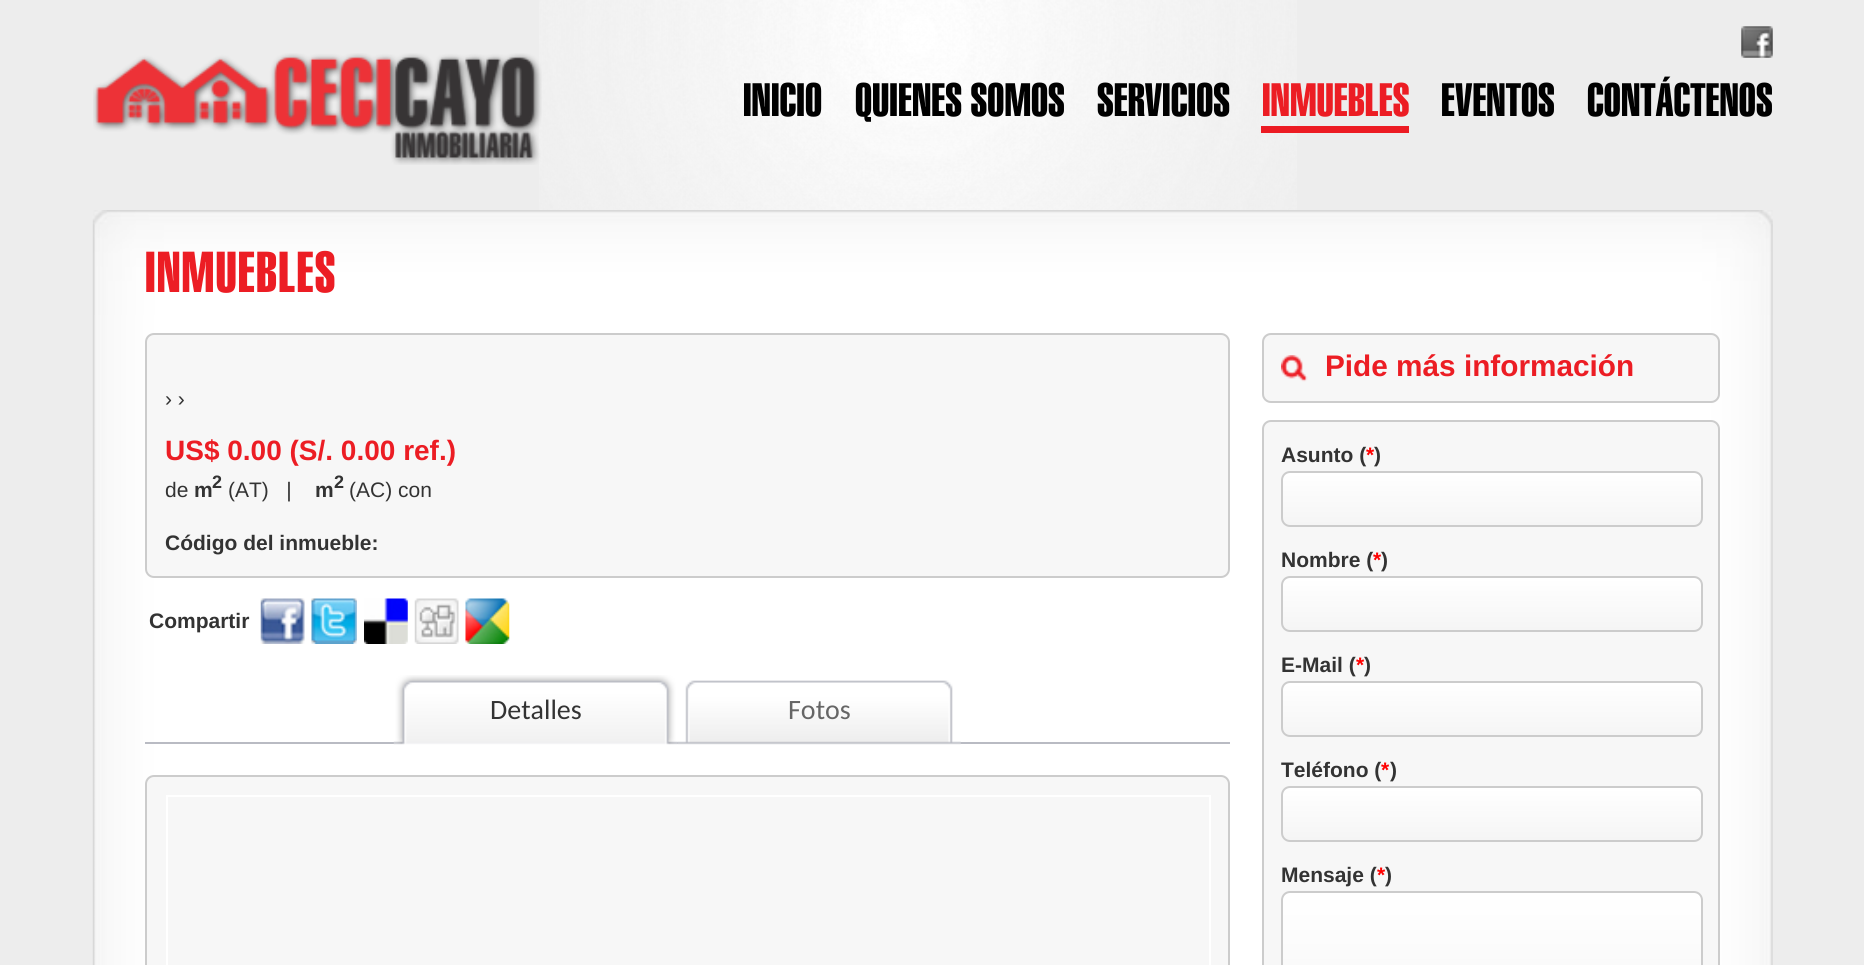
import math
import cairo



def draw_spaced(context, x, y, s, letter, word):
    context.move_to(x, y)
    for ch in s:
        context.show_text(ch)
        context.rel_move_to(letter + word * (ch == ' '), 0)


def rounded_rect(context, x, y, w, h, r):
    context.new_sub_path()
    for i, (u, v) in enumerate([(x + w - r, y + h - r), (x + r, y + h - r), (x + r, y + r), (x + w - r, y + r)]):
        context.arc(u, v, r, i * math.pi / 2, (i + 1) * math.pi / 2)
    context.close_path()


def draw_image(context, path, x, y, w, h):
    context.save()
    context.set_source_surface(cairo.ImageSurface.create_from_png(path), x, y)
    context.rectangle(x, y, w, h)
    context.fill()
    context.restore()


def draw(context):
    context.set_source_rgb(237 / 255, 237 / 255, 237 / 255)
    context.paint()
    draw_image(context, "images/1.png", 539, 0, 758, 210)
    draw_image(context, "images/2.png", 1741, 26, 32, 32)
    draw_image(context, "images/3.png", 93, 53, 449, 112)
    context.set_source_rgb(236 / 255, 27 / 255, 35 / 255)
    context.rectangle(1261, 126, 148, 7)
    context.fill()
    draw_image(context, "images/4.png", 92, 210, 1681, 105)
    draw_image(context, "images/5.png", 92, 315, 1681, 650)
    context.set_source_rgb(247 / 255, 247 / 255, 247 / 255)
    rounded_rect(context, 146, 334, 1083, 243, 8)
    context.fill_preserve()
    context.set_source_rgb(204 / 255, 204 / 255, 204 / 255)
    context.stroke()
    draw_image(context, "images/6.png", 260, 598, 45, 46)
    draw_image(context, "images/7.png", 311, 598, 46, 46)
    draw_image(context, "images/8.png", 364, 598, 44, 46)
    draw_image(context, "images/9.png", 414, 598, 45, 46)
    draw_image(context, "images/10.png", 465, 598, 45, 46)
    context.set_source_rgb(185 / 255, 187 / 255, 195 / 255)
    context.rectangle(145, 742, 1085, 2)
    context.fill()
    draw_image(context, "images/11.png", 393, 675, 285, 70)
    draw_image(context, "images/12.png", 677, 680, 284, 65)
    context.set_source_rgb(247 / 255, 247 / 255, 247 / 255)
    rounded_rect(context, 146, 776, 1083, 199, 8)
    context.fill_preserve()
    context.set_source_rgb(204 / 255, 204 / 255, 204 / 255)
    context.stroke()
    context.rectangle(167, 796, 1043, 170)
    context.set_source_rgb(1, 1, 1)
    context.stroke()
    context.set_source_rgb(247 / 255, 247 / 255, 247 / 255)
    rounded_rect(context, 1262, 333, 458, 70, 9)
    context.fill()
    draw_image(context, "images/13.png", 1281, 355, 27, 27)
    rounded_rect(context, 1263, 334, 456, 68, 8)
    context.set_source_rgb(204 / 255, 204 / 255, 204 / 255)
    context.stroke()
    context.set_source_rgb(247 / 255, 247 / 255, 247 / 255)
    rounded_rect(context, 1263, 421, 456, 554, 8)
    context.fill_preserve()
    context.set_source_rgb(204 / 255, 204 / 255, 204 / 255)
    context.stroke()
    context.save()
    rounded_rect(context, 1281, 471, 422, 56, 9)
    context.clip()
    gradient = cairo.LinearGradient(1283, 473, 1283, 525)
    gradient.add_color_stop_rgba(0, 1, 1, 1, 1)
    gradient.add_color_stop_rgba(1, 245 / 255, 245 / 255, 245 / 255, 1)
    context.set_source(gradient)
    context.rectangle(1281, 473, 422, 52)
    context.fill()
    context.restore()
    rounded_rect(context, 1282, 472, 420, 54, 8)
    context.stroke()
    context.save()
    rounded_rect(context, 1281, 576, 422, 56, 9)
    context.clip()
    gradient = cairo.LinearGradient(1283, 578, 1283, 630)
    gradient.add_color_stop_rgba(0, 1, 1, 1, 1)
    gradient.add_color_stop_rgba(1, 245 / 255, 245 / 255, 245 / 255, 1)
    context.set_source(gradient)
    context.rectangle(1281, 578, 422, 52)
    context.fill()
    context.restore()
    rounded_rect(context, 1282, 577, 420, 54, 8)
    context.stroke()
    context.save()
    rounded_rect(context, 1281, 681, 422, 56, 9)
    context.clip()
    gradient = cairo.LinearGradient(1283, 683, 1283, 735)
    gradient.add_color_stop_rgba(0, 1, 1, 1, 1)
    gradient.add_color_stop_rgba(1, 245 / 255, 245 / 255, 245 / 255, 1)
    context.set_source(gradient)
    context.rectangle(1281, 683, 422, 52)
    context.fill()
    context.restore()
    rounded_rect(context, 1282, 682, 420, 54, 8)
    context.stroke()
    context.save()
    rounded_rect(context, 1281, 786, 422, 56, 9)
    context.clip()
    gradient = cairo.LinearGradient(1283, 788, 1283, 840)
    gradient.add_color_stop_rgba(0, 1, 1, 1, 1)
    gradient.add_color_stop_rgba(1, 245 / 255, 245 / 255, 245 / 255, 1)
    context.set_source(gradient)
    context.rectangle(1281, 788, 422, 52)
    context.fill()
    context.restore()
    rounded_rect(context, 1282, 787, 420, 54, 8)
    context.stroke()
    context.save()
    rounded_rect(context, 1281, 891, 422, 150, 9)
    context.clip()
    gradient = cairo.LinearGradient(1283, 893, 1283, 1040)
    gradient.add_color_stop_rgba(0, 1, 1, 1, 1)
    gradient.add_color_stop_rgba(1, 245 / 255, 245 / 255, 245 / 255, 1)
    context.set_source(gradient)
    context.rectangle(1281, 893, 422, 72)
    context.fill()
    context.restore()
    rounded_rect(context, 1282, 892, 420, 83, 8)
    context.stroke()
    context.select_font_face("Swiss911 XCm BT")
    context.set_font_size(45.5)
    context.set_source_rgb(0, 0, 0)
    context.move_to(743, 116)
    context.show_text("INICIO")
    context.move_to(855, 116)
    context.show_text("QUIENES SOMOS")
    context.move_to(1097, 116)
    context.show_text("SERVICIOS")
    context.set_source_rgb(236 / 255, 29 / 255, 36 / 255)
    context.move_to(1262, 116)
    context.show_text("INMUEBLES")
    context.set_source_rgb(0, 0, 0)
    context.move_to(1441, 116)
    context.show_text("EVENTOS")
    context.move_to(1587, 116)
    context.show_text("CONTÁCTENOS")
    context.set_font_size(56)
    context.set_source_rgb(236 / 255, 29 / 255, 36 / 255)
    draw_spaced(context, 145, 292, "INMUEBLES", 1.1, 0)
    context.select_font_face("Liberation Sans")
    context.set_font_size(21)
    context.set_source_rgb(51 / 255, 51 / 255, 51 / 255)
    context.move_to(165, 406)
    context.show_text("› ›")
    context.select_font_face("Liberation Sans", cairo.FontSlant.NORMAL, cairo.FontWeight.BOLD)
    context.set_font_size(28)
    context.set_source_rgb(236 / 255, 29 / 255, 36 / 255)
    context.move_to(165, 460)
    context.show_text("US$ 0.00 (S/. 0.00 ref.)")
    context.select_font_face("Liberation Sans")
    context.set_font_size(21)
    context.set_source_rgb(51 / 255, 51 / 255, 51 / 255)
    context.move_to(165, 497)
    context.show_text("de")
    context.select_font_face("Liberation Sans", cairo.FontSlant.NORMAL, cairo.FontWeight.BOLD)
    context.move_to(194, 497)
    context.show_text("m")
    context.set_font_size(18)
    context.move_to(212, 488)
    context.show_text("2")
    context.select_font_face("Liberation Sans")
    context.set_font_size(21)
    context.move_to(228, 497)
    context.show_text("(AT)   |")
    context.select_font_face("Liberation Sans", cairo.FontSlant.NORMAL, cairo.FontWeight.BOLD)
    context.move_to(315, 497)
    context.show_text("m")
    context.set_font_size(18)
    context.move_to(334, 488)
    context.show_text("2")
    context.select_font_face("Liberation Sans")
    context.set_font_size(21)
    context.move_to(349, 497)
    context.show_text("(AC) con")
    context.select_font_face("Liberation Sans", cairo.FontSlant.NORMAL, cairo.FontWeight.BOLD)
    context.move_to(165, 550)
    context.show_text("Código del inmueble:")
    context.move_to(149, 628)
    context.show_text("Compartir")
    context.select_font_face("Carlito")
    context.set_font_size(28)
    context.move_to(490, 719)
    context.show_text("Detalles")
    context.set_source_rgb(102 / 255, 102 / 255, 102 / 255)
    context.move_to(788, 719)
    context.show_text("Fotos")
    context.select_font_face("Liberation Sans", cairo.FontSlant.NORMAL, cairo.FontWeight.BOLD)
    context.set_font_size(29.75)
    context.set_source_rgb(236 / 255, 29 / 255, 36 / 255)
    context.move_to(1325, 376)
    context.show_text("Pide más información")
    context.set_font_size(21)
    context.set_source_rgb(51 / 255, 51 / 255, 51 / 255)
    context.move_to(1281, 462)
    context.show_text("Asunto (")
    context.set_source_rgb(1, 0, 0)
    context.move_to(1366, 462)
    context.show_text("*")
    context.set_source_rgb(51 / 255, 51 / 255, 51 / 255)
    context.move_to(1374, 462)
    context.show_text(")")
    context.move_to(1281, 567)
    context.show_text("Nombre (")
    context.set_source_rgb(1, 0, 0)
    context.move_to(1373, 567)
    context.show_text("*")
    context.set_source_rgb(51 / 255, 51 / 255, 51 / 255)
    context.move_to(1381, 567)
    context.show_text(")")
    context.move_to(1281, 672)
    context.show_text("E-Mail (")
    context.set_source_rgb(1, 0, 0)
    context.move_to(1356, 672)
    context.show_text("*")
    context.set_source_rgb(51 / 255, 51 / 255, 51 / 255)
    context.move_to(1364, 672)
    context.show_text(")")
    context.move_to(1281, 777)
    context.show_text("Teléfono (")
    context.set_source_rgb(1, 0, 0)
    context.move_to(1381, 777)
    context.show_text("*")
    context.set_source_rgb(51 / 255, 51 / 255, 51 / 255)
    context.move_to(1390, 777)
    context.show_text(")")
    context.move_to(1281, 882)
    context.show_text("Mensaje (")
    context.set_source_rgb(1, 0, 0)
    context.move_to(1377, 882)
    context.show_text("*")
    context.set_source_rgb(51 / 255, 51 / 255, 51 / 255)
    context.move_to(1385, 882)
    context.show_text(")")


surface = cairo.ImageSurface(cairo.Format.RGB24, 1864, 965)
context = cairo.Context(surface)
options = cairo.FontOptions()
options.set_hint_metrics(cairo.HintMetrics.OFF)
options.set_hint_style(cairo.HintStyle.NONE)
context.set_font_options(options)
context.set_miter_limit(4)
draw(context)
surface.write_to_png("out.png")
